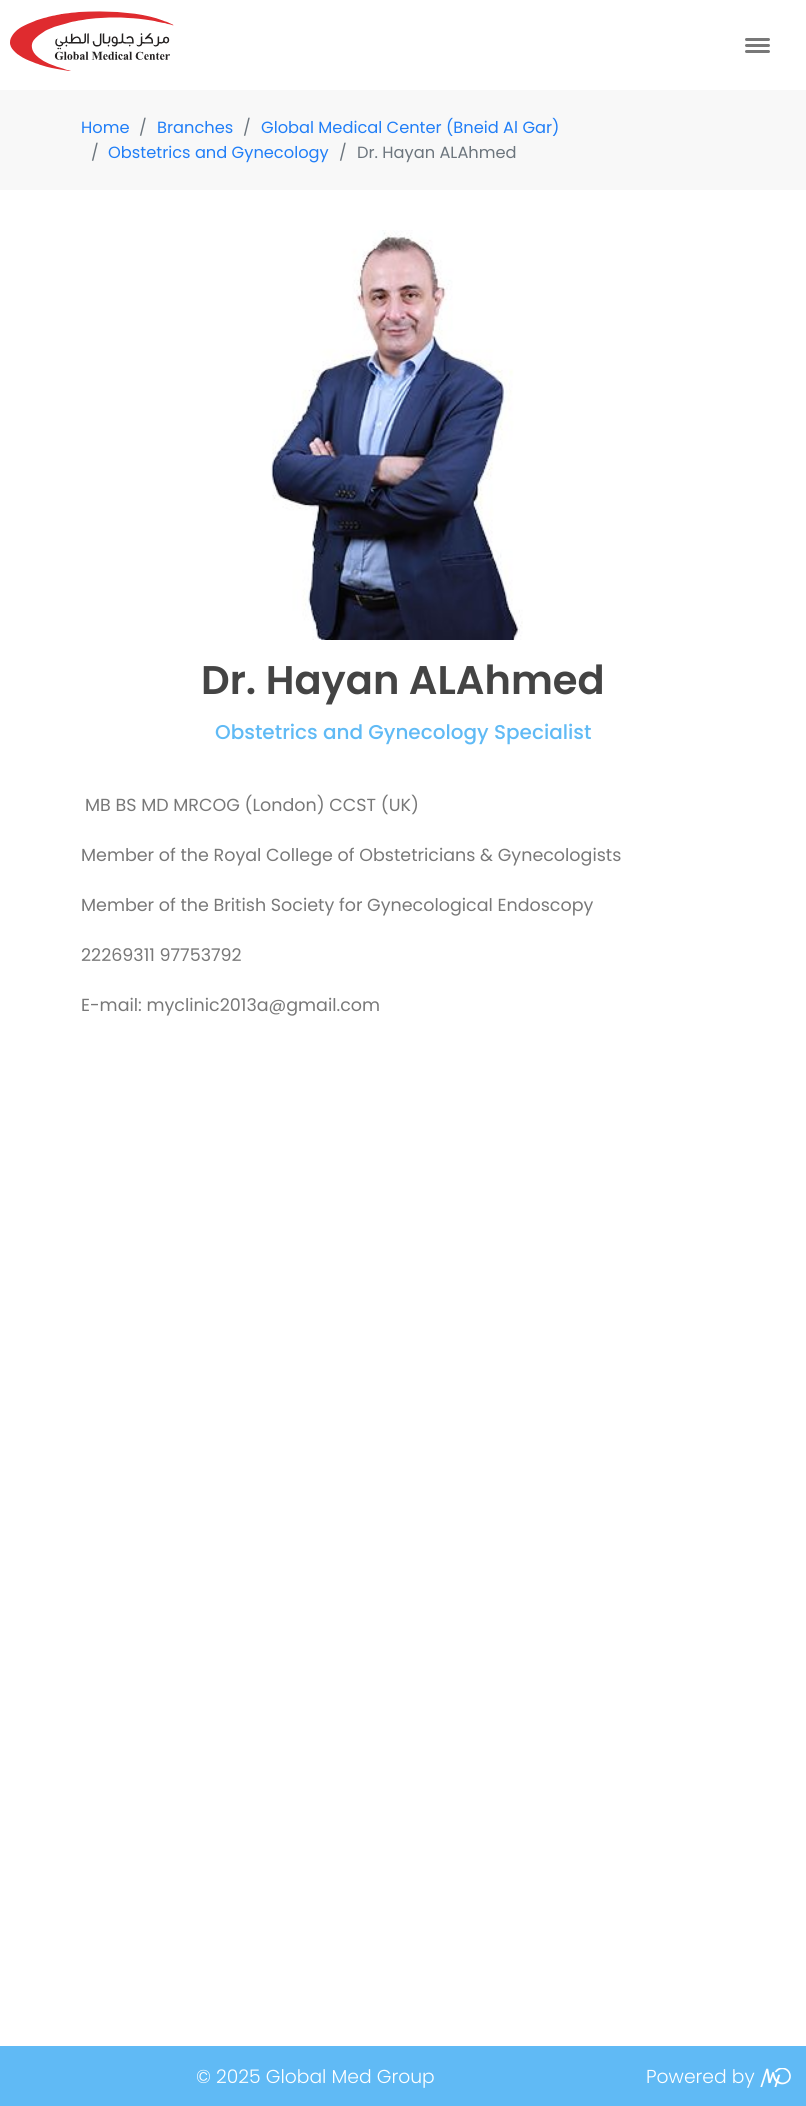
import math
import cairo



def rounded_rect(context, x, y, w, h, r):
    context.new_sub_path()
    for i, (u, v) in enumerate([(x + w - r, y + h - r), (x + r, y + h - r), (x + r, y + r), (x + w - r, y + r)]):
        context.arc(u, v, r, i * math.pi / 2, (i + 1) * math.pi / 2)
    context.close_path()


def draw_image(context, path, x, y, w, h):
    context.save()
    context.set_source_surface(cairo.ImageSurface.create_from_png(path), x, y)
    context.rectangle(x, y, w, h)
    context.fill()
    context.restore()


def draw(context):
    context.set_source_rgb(1, 1, 1)
    context.paint()
    draw_image(context, "images/1.png", 10, 11, 164, 60)
    context.set_source_rgb(120 / 255, 120 / 255, 120 / 255)
    rounded_rect(context, 745, 38, 25, 3, 1.5)
    context.fill()
    rounded_rect(context, 745, 44, 25, 3, 1.5)
    context.fill()
    rounded_rect(context, 745, 50, 25, 3, 1.5)
    context.fill()
    context.set_source_rgb(248 / 255, 248 / 255, 248 / 255)
    context.rectangle(0, 90, 806, 100)
    context.fill()
    draw_image(context, "images/2.png", 270, 230, 253, 410)
    context.set_source_rgb(96 / 255, 186 / 255, 245 / 255)
    context.rectangle(0, 2046, 806, 60)
    context.fill()
    draw_image(context, "images/3.png", 760, 2068, 31, 19)
    context.select_font_face("Poppins")
    context.set_font_size(16.25)
    context.set_source_rgb(32 / 255, 126 / 255, 247 / 255)
    context.move_to(81, 133)
    context.show_text("Home")
    context.set_source_rgb(108 / 255, 117 / 255, 125 / 255)
    context.move_to(139, 133)
    context.show_text("/")
    context.set_source_rgb(32 / 255, 126 / 255, 247 / 255)
    context.move_to(157, 133)
    context.show_text("Branches")
    context.set_source_rgb(108 / 255, 117 / 255, 125 / 255)
    context.move_to(243, 133)
    context.show_text("/")
    context.set_source_rgb(32 / 255, 126 / 255, 247 / 255)
    context.move_to(261, 133)
    context.show_text("Global Medical Center (Bneid Al Gar)")
    context.set_source_rgb(108 / 255, 117 / 255, 125 / 255)
    context.move_to(91, 158)
    context.show_text("/")
    context.set_source_rgb(32 / 255, 126 / 255, 247 / 255)
    context.move_to(108, 158)
    context.show_text("Obstetrics and Gynecology")
    context.set_source_rgb(108 / 255, 117 / 255, 125 / 255)
    context.move_to(339, 158)
    context.show_text("/")
    context.move_to(357, 158)
    context.show_text("Dr. Hayan ALAhmed")
    context.select_font_face("Poppins SemiBold")
    context.set_font_size(40)
    context.set_source_rgb(68 / 255, 68 / 255, 68 / 255)
    context.move_to(201, 694)
    context.show_text("Dr. Hayan ALAhmed")
    context.select_font_face("Poppins Medium")
    context.set_font_size(20)
    context.set_source_rgb(96 / 255, 186 / 255, 245 / 255)
    context.move_to(215, 739)
    context.show_text("Obstetrics and Gynecology Specialist")
    context.select_font_face("Poppins")
    context.set_font_size(17.5)
    context.set_source_rgb(120 / 255, 120 / 255, 120 / 255)
    context.move_to(85, 811)
    context.show_text("MB BS MD MRCOG (London) CCST (UK)")
    context.move_to(81, 861)
    context.show_text("Member of the Royal College of Obstetricians & Gynecologists")
    context.move_to(81, 911)
    context.show_text("Member of the British Society for Gynecological Endoscopy")
    context.move_to(81, 961)
    context.show_text("22269311 97753792")
    context.move_to(81, 1011)
    context.show_text("E-mail: myclinic2013a@gmail.com")
    context.select_font_face("Poppins Light")
    context.set_font_size(18.75)
    context.set_source_rgb(1, 1, 1)
    context.move_to(196, 2083)
    context.show_text("© 2025 Global Med Group")
    context.move_to(646, 2083)
    context.show_text("Powered by")


surface = cairo.ImageSurface(cairo.Format.RGB24, 806, 2106)
context = cairo.Context(surface)
options = cairo.FontOptions()
options.set_hint_metrics(cairo.HintMetrics.OFF)
options.set_hint_style(cairo.HintStyle.NONE)
context.set_font_options(options)
context.set_miter_limit(4)
draw(context)
surface.write_to_png("out.png")
